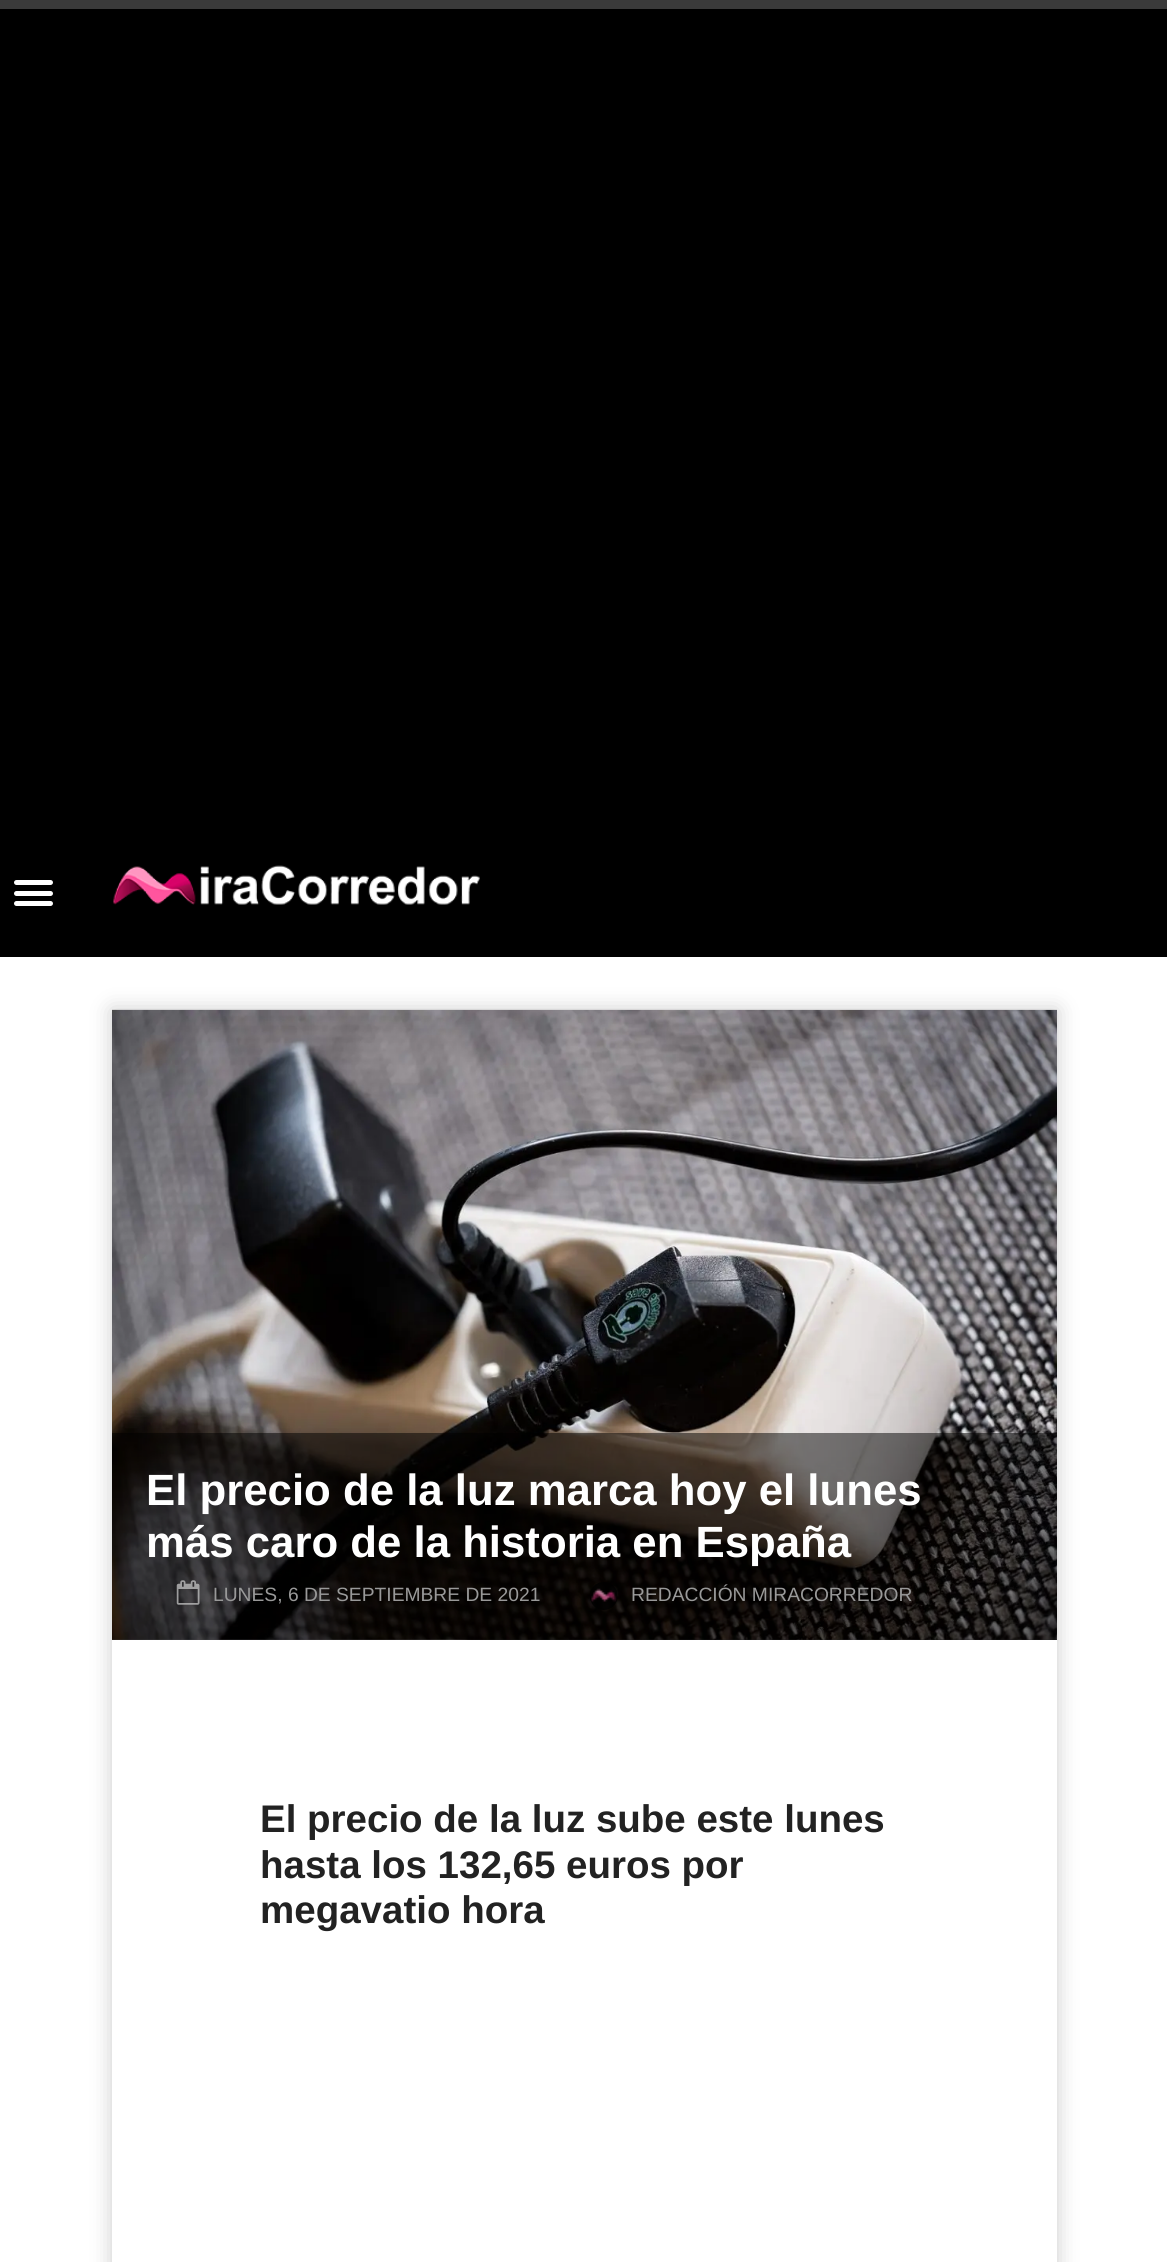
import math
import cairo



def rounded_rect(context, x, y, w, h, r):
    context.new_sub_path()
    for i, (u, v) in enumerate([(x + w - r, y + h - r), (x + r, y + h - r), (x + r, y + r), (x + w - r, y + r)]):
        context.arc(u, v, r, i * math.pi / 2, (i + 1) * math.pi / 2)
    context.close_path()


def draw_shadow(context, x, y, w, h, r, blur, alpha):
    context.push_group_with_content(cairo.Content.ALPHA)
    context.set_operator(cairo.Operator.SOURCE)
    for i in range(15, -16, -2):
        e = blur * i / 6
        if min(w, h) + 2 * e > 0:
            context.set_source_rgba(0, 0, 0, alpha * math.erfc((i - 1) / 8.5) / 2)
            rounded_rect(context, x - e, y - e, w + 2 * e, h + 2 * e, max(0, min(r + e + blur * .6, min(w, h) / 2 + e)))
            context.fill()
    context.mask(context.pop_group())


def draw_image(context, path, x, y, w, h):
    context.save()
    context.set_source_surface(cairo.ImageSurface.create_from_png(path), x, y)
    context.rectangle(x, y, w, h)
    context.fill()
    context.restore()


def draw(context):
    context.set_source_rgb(1, 1, 1)
    context.paint()
    context.set_source_rgb(0, 0, 0)
    context.rectangle(0, 9, 1167, 948)
    context.fill()
    context.set_source_rgb(58 / 255, 58 / 255, 58 / 255)
    context.rectangle(0, 0, 1167, 9)
    context.fill()
    context.set_source_rgb(1, 1, 1)
    rounded_rect(context, 14, 880, 39, 5, 2.5)
    context.fill()
    rounded_rect(context, 14, 891, 39, 5, 2.5)
    context.fill()
    rounded_rect(context, 14, 901, 39, 5, 2.5)
    context.fill()
    draw_image(context, "images/1.png", 113, 865, 367, 40)
    context.save()
    context.set_fill_rule(cairo.FillRule.EVEN_ODD)
    context.new_path()
    context.move_to(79, 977)
    context.line_to(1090, 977)
    context.line_to(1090, 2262)
    context.line_to(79, 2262)
    context.close_path()
    context.move_to(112, 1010)
    context.line_to(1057, 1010)
    context.line_to(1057, 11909)
    context.line_to(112, 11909)
    context.close_path()
    context.clip()
    context.set_source_rgb(204 / 255, 204 / 255, 204 / 255)
    draw_shadow(context, 112, 1010, 945, 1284, 0, 10.5, 1)
    context.restore()
    draw_image(context, "images/2.png", 112, 1009, 945, 631)
    draw_image(context, "images/3.png", 112, 1009, 945, 631)
    context.set_source_rgba(0, 0, 0, 0.5)
    context.rectangle(112, 1433, 945, 207)
    context.fill()
    draw_image(context, "images/4.png", 176, 1580, 24, 25)
    draw_image(context, "images/5.png", 590, 1582, 27, 28)
    context.select_font_face("Liberation Sans", cairo.FontSlant.NORMAL, cairo.FontWeight.BOLD)
    context.set_font_size(43.75)
    context.set_source_rgb(1, 1, 1)
    context.move_to(146, 1505)
    context.show_text("El precio de la luz marca hoy el lunes")
    context.move_to(146, 1557)
    context.show_text("más caro de la historia en España")
    context.select_font_face("Liberation Sans")
    context.set_font_size(19.25)
    context.set_source_rgb(153 / 255, 153 / 255, 153 / 255)
    context.move_to(213, 1601)
    context.show_text("LUNES, 6 DE SEPTIEMBRE DE 2021")
    context.move_to(631, 1601)
    context.show_text("REDACCIÓN MIRACORREDOR")
    context.select_font_face("Liberation Sans", cairo.FontSlant.NORMAL, cairo.FontWeight.BOLD)
    context.set_font_size(38.5)
    context.set_source_rgb(34 / 255, 34 / 255, 34 / 255)
    context.move_to(260, 1832)
    context.show_text("El precio de la luz sube este lunes")
    context.move_to(260, 1878)
    context.show_text("hasta los 132,65 euros por")
    context.move_to(260, 1923)
    context.show_text("megavatio hora")


surface = cairo.ImageSurface(cairo.Format.RGB24, 1167, 2262)
context = cairo.Context(surface)
options = cairo.FontOptions()
options.set_hint_metrics(cairo.HintMetrics.OFF)
options.set_hint_style(cairo.HintStyle.NONE)
context.set_font_options(options)
context.set_miter_limit(4)
draw(context)
surface.write_to_png("out.png")
